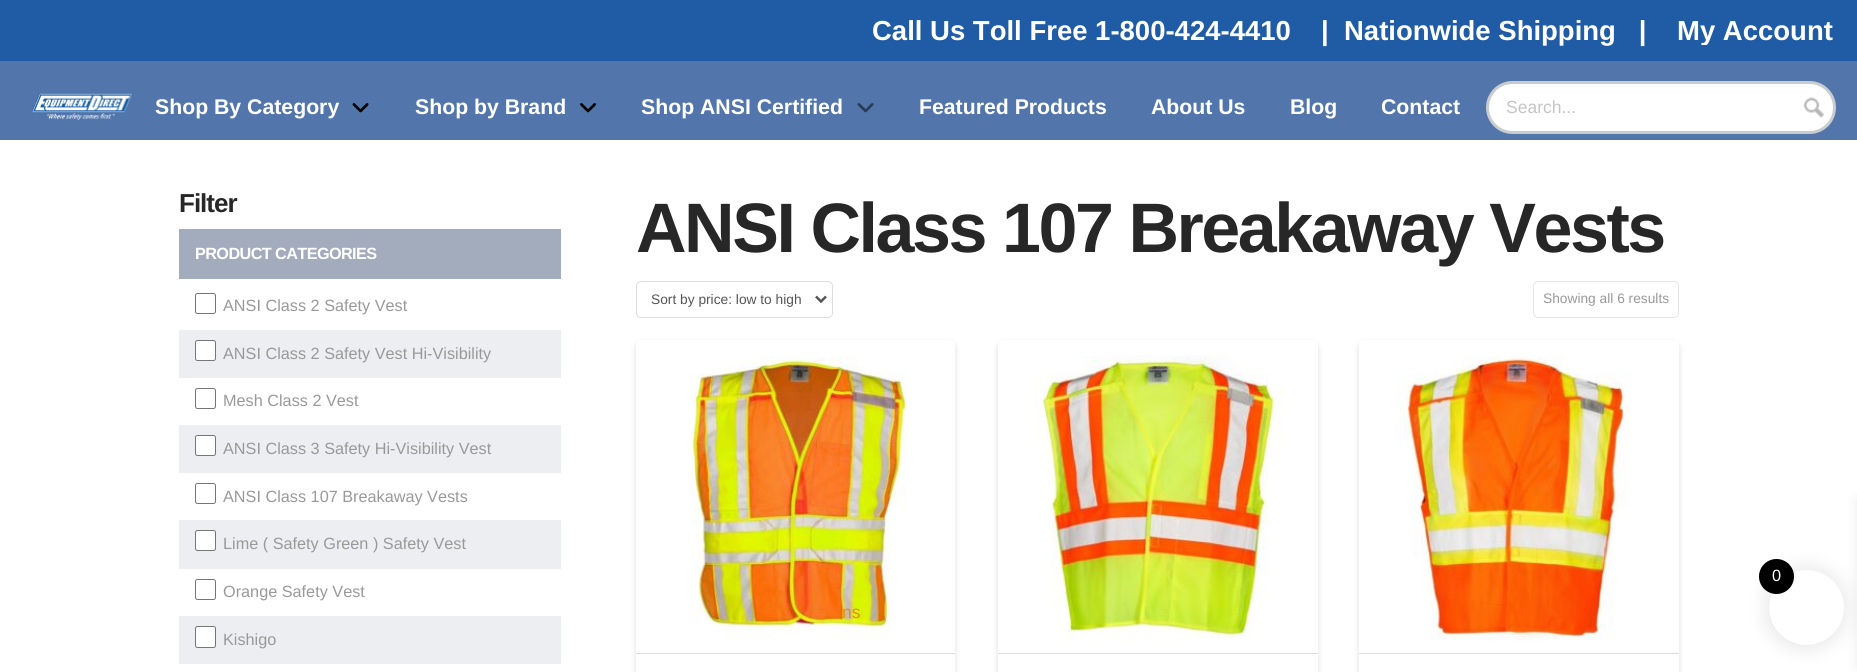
import math
import cairo



def draw_spaced(context, x, y, s, letter, word):
    context.move_to(x, y)
    for ch in s:
        context.show_text(ch)
        context.rel_move_to(letter + word * (ch == ' '), 0)


def rounded_rect(context, x, y, w, h, r):
    context.new_sub_path()
    for i, (u, v) in enumerate([(x + w - r, y + h - r), (x + r, y + h - r), (x + r, y + r), (x + w - r, y + r)]):
        context.arc(u, v, r, i * math.pi / 2, (i + 1) * math.pi / 2)
    context.close_path()


def draw_shadow(context, x, y, w, h, r, blur, alpha):
    context.push_group_with_content(cairo.Content.ALPHA)
    context.set_operator(cairo.Operator.SOURCE)
    for i in range(15, -16, -2):
        e = blur * i / 6
        if min(w, h) + 2 * e > 0:
            context.set_source_rgba(0, 0, 0, alpha * math.erfc((i - 1) / 8.5) / 2)
            rounded_rect(context, x - e, y - e, w + 2 * e, h + 2 * e, max(0, min(r + e + blur * .6, min(w, h) / 2 + e)))
            context.fill()
    context.mask(context.pop_group())


def draw_image(context, path, x, y, w, h):
    context.save()
    context.set_source_surface(cairo.ImageSurface.create_from_png(path), x, y)
    context.rectangle(x, y, w, h)
    context.fill()
    context.restore()


def draw(context):
    context.set_source_rgb(1, 1, 1)
    context.paint()
    context.set_source_rgb(31 / 255, 92 / 255, 165 / 255)
    context.rectangle(0, 0, 1857, 61)
    context.fill()
    context.set_source_rgb(82 / 255, 118 / 255, 172 / 255)
    context.rectangle(0, 61, 1857, 79)
    context.fill()
    draw_image(context, "images/1.png", 31, 93, 102, 27)
    draw_image(context, "images/2.png", 352, 103, 17, 10)
    draw_image(context, "images/3.png", 580, 103, 16, 10)
    draw_image(context, "images/4.png", 857, 103, 17, 10)
    context.set_source_rgb(1, 1, 1)
    rounded_rect(context, 1487.5, 82.5, 347, 50, 25)
    context.fill_preserve()
    context.set_source_rgb(201 / 255, 204 / 255, 207 / 255)
    context.set_line_width(3)
    context.stroke()
    draw_image(context, "images/5.png", 1803, 97, 21, 21)
    context.set_source_rgb(162 / 255, 172 / 255, 189 / 255)
    context.rectangle(179, 229, 382, 50)
    context.fill()
    rounded_rect(context, 195.5, 293.5, 20, 20, 2)
    context.set_source_rgb(118 / 255, 118 / 255, 118 / 255)
    context.set_line_width(1)
    context.stroke()
    context.set_source_rgb(236 / 255, 238 / 255, 242 / 255)
    context.rectangle(179, 330, 382, 48)
    context.fill()
    context.set_source_rgb(1, 1, 1)
    rounded_rect(context, 195.5, 340.5, 20, 20, 2)
    context.fill_preserve()
    context.set_source_rgb(118 / 255, 118 / 255, 118 / 255)
    context.stroke()
    rounded_rect(context, 195.5, 388.5, 20, 20, 2)
    context.stroke()
    context.set_source_rgb(236 / 255, 238 / 255, 242 / 255)
    context.rectangle(179, 425, 382, 48)
    context.fill()
    context.set_source_rgb(1, 1, 1)
    rounded_rect(context, 195.5, 435.5, 20, 20, 2)
    context.fill_preserve()
    context.set_source_rgb(118 / 255, 118 / 255, 118 / 255)
    context.stroke()
    rounded_rect(context, 195.5, 483.5, 20, 20, 2)
    context.stroke()
    context.set_source_rgb(236 / 255, 238 / 255, 242 / 255)
    context.rectangle(179, 520, 382, 49)
    context.fill()
    context.set_source_rgb(1, 1, 1)
    rounded_rect(context, 195.5, 530.5, 20, 20, 2)
    context.fill_preserve()
    context.set_source_rgb(118 / 255, 118 / 255, 118 / 255)
    context.stroke()
    rounded_rect(context, 195.5, 579.5, 20, 20, 2)
    context.stroke()
    context.set_source_rgb(236 / 255, 238 / 255, 242 / 255)
    context.rectangle(179, 616, 382, 48)
    context.fill()
    context.set_source_rgb(1, 1, 1)
    rounded_rect(context, 195.5, 626.5, 20, 21, 2)
    context.fill_preserve()
    context.set_source_rgb(118 / 255, 118 / 255, 118 / 255)
    context.stroke()
    rounded_rect(context, 636.5, 281.5, 196, 36, 4.5)
    context.set_source_rgb(221 / 255, 221 / 255, 221 / 255)
    context.stroke()
    context.new_path()
    context.move_to(816, 296.5)
    context.line_to(821, 301.5)
    context.line_to(826, 296.5)
    context.set_source_rgb(85 / 255, 85 / 255, 85 / 255)
    context.set_line_width(2.5)
    context.stroke()
    rounded_rect(context, 1533.5, 281.5, 145, 36, 4.5)
    context.set_source_rgb(230 / 255, 230 / 255, 230 / 255)
    context.set_line_width(1)
    context.stroke()
    context.set_source_rgb(0, 0, 0)
    draw_shadow(context, 636, 343, 319, 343, 5, 3, 0.13)
    context.set_source_rgb(1, 1, 1)
    rounded_rect(context, 636, 340, 319, 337, 5)
    context.fill()
    context.set_source_rgb(221 / 255, 221 / 255, 221 / 255)
    context.rectangle(636, 653, 319, 1)
    context.fill()
    draw_image(context, "images/6.png", 690, 356, 218, 284)
    context.set_source_rgb(0, 0, 0)
    draw_shadow(context, 998, 343, 320, 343, 5, 3, 0.13)
    context.set_source_rgb(1, 1, 1)
    rounded_rect(context, 998, 340, 320, 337, 5)
    context.fill()
    context.set_source_rgb(221 / 255, 221 / 255, 221 / 255)
    context.rectangle(998, 653, 320, 1)
    context.fill()
    draw_image(context, "images/7.png", 1034, 355, 250, 286)
    context.set_source_rgb(0, 0, 0)
    draw_shadow(context, 1359, 343, 320, 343, 5, 3, 0.13)
    context.set_source_rgb(1, 1, 1)
    rounded_rect(context, 1359, 340, 320, 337, 5)
    context.fill()
    context.set_source_rgb(221 / 255, 221 / 255, 221 / 255)
    context.rectangle(1359, 653, 320, 1)
    context.fill()
    draw_image(context, "images/8.png", 1396, 356, 234, 285)
    context.set_source_rgb(0, 0, 0)
    draw_shadow(context, 1766, 568, 80, 80, 40, 9.5, 0.1)
    draw_shadow(context, 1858, 501, 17, 165, 0, 6, 0.1)
    context.set_source_rgb(1, 1, 1)
    context.arc(1806.5, 607.5, 37.5, 0, 2 * math.pi)
    context.fill()
    context.set_source_rgb(0, 0, 0)
    context.arc(1776.5, 576.5, 17.5, 0, 2 * math.pi)
    context.fill()
    context.select_font_face("Liberation Sans", cairo.FontSlant.NORMAL, cairo.FontWeight.BOLD)
    context.set_font_size(27.5)
    context.set_source_rgb(1, 1, 1)
    context.move_to(872, 40)
    context.show_text("Call Us Toll Free 1-800-424-4410")
    context.move_to(1321, 40)
    context.show_text("|  Nationwide Shipping   |")
    context.save()
    context.rectangle(1676, 18, 157, 27)
    context.clip()
    context.move_to(1677, 40)
    context.show_text("My Account")
    context.restore()
    context.set_font_size(21.25)
    context.move_to(155, 114)
    context.show_text("Shop By Category")
    context.move_to(415, 114)
    context.show_text("Shop by Brand")
    context.move_to(641, 114)
    context.show_text("Shop ANSI Certified")
    context.move_to(919, 114)
    context.show_text("Featured Products")
    context.move_to(1151, 114)
    context.show_text("About Us")
    context.move_to(1290, 114)
    context.show_text("Blog")
    context.move_to(1381, 114)
    context.show_text("Contact")
    context.select_font_face("Liberation Sans")
    context.set_font_size(17.5)
    context.set_source_rgb(197 / 255, 197 / 255, 197 / 255)
    context.move_to(1506, 113)
    context.show_text("Search...")
    context.select_font_face("Liberation Sans", cairo.FontSlant.NORMAL, cairo.FontWeight.BOLD)
    context.set_font_size(26)
    context.set_source_rgb(39 / 255, 39 / 255, 39 / 255)
    draw_spaced(context, 179, 212, "Filter", -1, 0)
    context.set_font_size(16.25)
    context.set_source_rgb(1, 1, 1)
    draw_spaced(context, 195, 259, "PRODUCT CATEGORIES", -0.6, 0)
    context.select_font_face("Liberation Sans")
    context.set_source_rgb(153 / 255, 153 / 255, 153 / 255)
    context.move_to(223, 311)
    context.show_text("ANSI Class 2 Safety Vest")
    context.move_to(223, 359)
    context.show_text("ANSI Class 2 Safety Vest Hi-Visibility")
    context.move_to(223, 406)
    context.show_text("Mesh Class 2 Vest")
    context.move_to(223, 454)
    context.show_text("ANSI Class 3 Safety Hi-Visibility Vest")
    context.move_to(223, 502)
    context.show_text("ANSI Class 107 Breakaway Vests")
    context.move_to(223, 549)
    context.show_text("Lime ( Safety Green ) Safety Vest")
    context.move_to(223, 597)
    context.show_text("Orange Safety Vest")
    context.move_to(223, 645)
    context.show_text("Kishigo")
    context.select_font_face("Liberation Sans", cairo.FontSlant.NORMAL, cairo.FontWeight.BOLD)
    context.set_font_size(70)
    context.set_source_rgb(39 / 255, 39 / 255, 39 / 255)
    draw_spaced(context, 636, 252, "ANSI Class 107 Breakaway Vests", -2.45, 0)
    context.select_font_face("Liberation Sans")
    context.set_font_size(13.75)
    context.set_source_rgb(85 / 255, 85 / 255, 85 / 255)
    context.move_to(651, 304)
    context.show_text("Sort by price: low to high")
    context.set_source_rgb(153 / 255, 153 / 255, 153 / 255)
    context.move_to(1543, 303)
    context.show_text("Showing all 6 results")
    context.set_font_size(17.5)
    context.set_source_rgb(237 / 255, 137 / 255, 28 / 255)
    context.move_to(842, 618)
    context.show_text("ns")
    context.set_font_size(16.25)
    context.set_source_rgb(1, 1, 1)
    context.move_to(1772, 581)
    context.show_text("0")


surface = cairo.ImageSurface(cairo.Format.RGB24, 1857, 672)
context = cairo.Context(surface)
options = cairo.FontOptions()
options.set_hint_metrics(cairo.HintMetrics.OFF)
options.set_hint_style(cairo.HintStyle.NONE)
context.set_font_options(options)
context.set_miter_limit(4)
draw(context)
surface.write_to_png("out.png")
